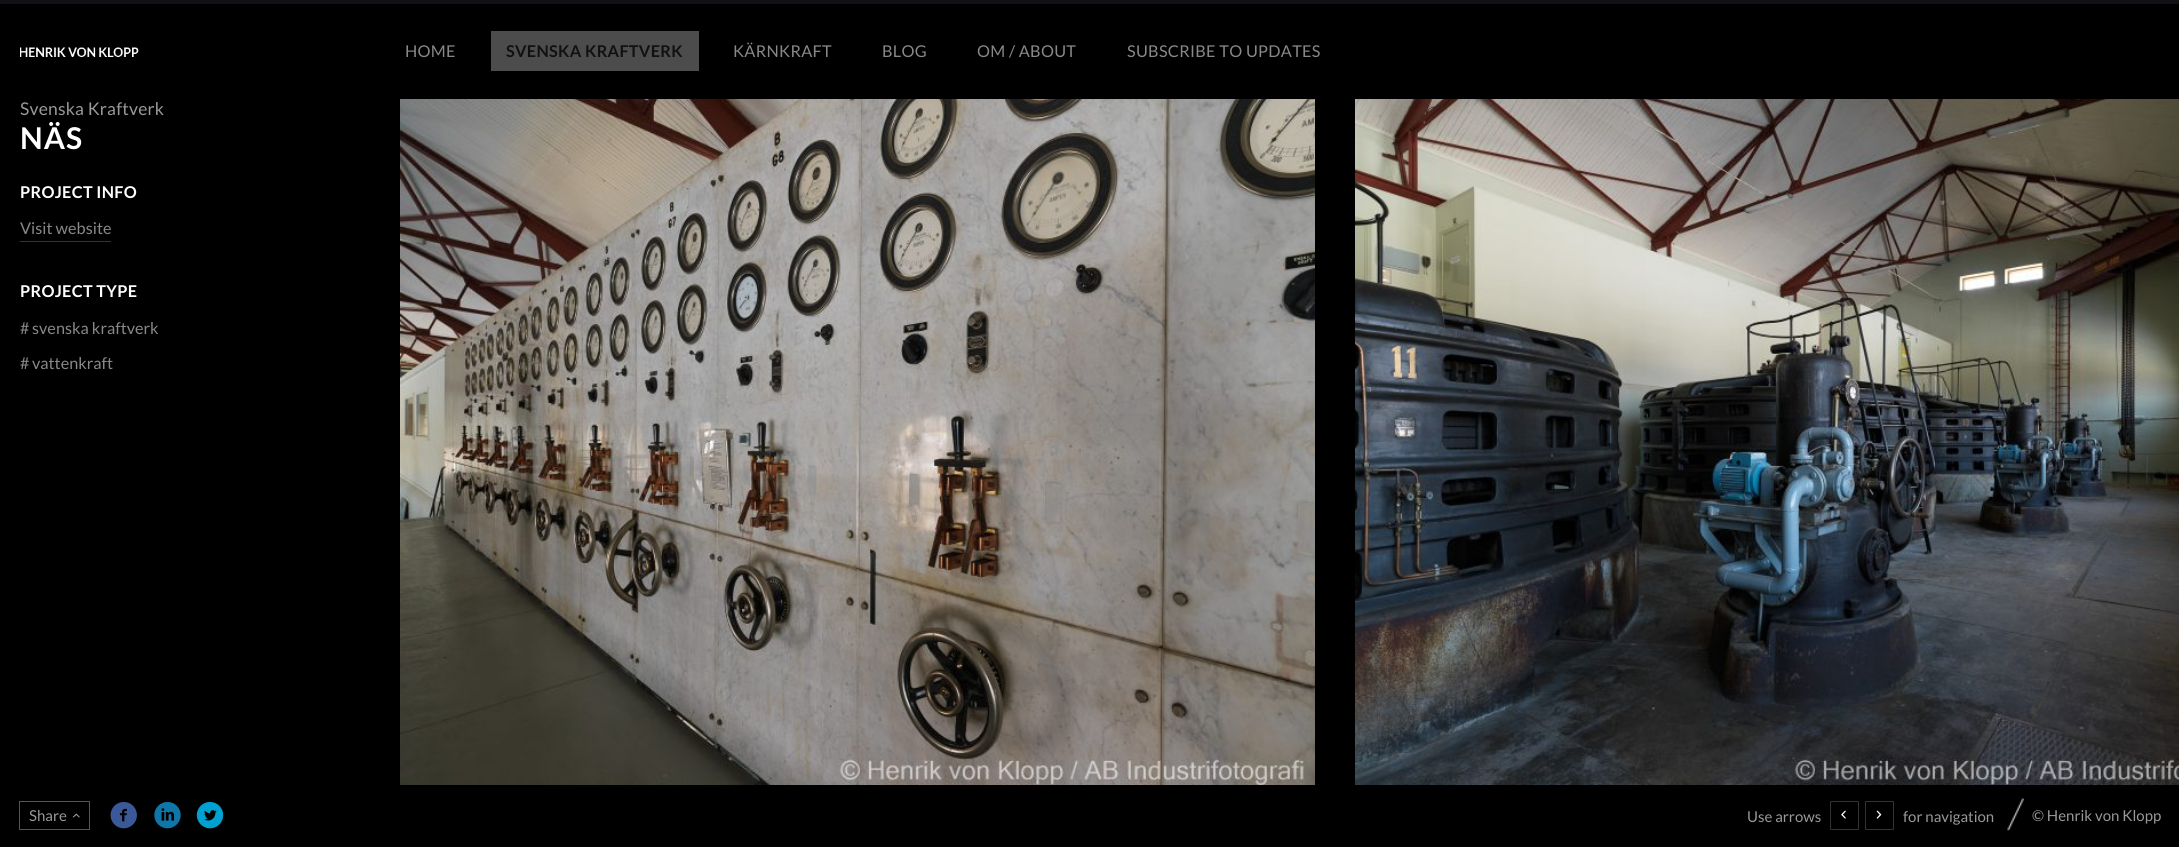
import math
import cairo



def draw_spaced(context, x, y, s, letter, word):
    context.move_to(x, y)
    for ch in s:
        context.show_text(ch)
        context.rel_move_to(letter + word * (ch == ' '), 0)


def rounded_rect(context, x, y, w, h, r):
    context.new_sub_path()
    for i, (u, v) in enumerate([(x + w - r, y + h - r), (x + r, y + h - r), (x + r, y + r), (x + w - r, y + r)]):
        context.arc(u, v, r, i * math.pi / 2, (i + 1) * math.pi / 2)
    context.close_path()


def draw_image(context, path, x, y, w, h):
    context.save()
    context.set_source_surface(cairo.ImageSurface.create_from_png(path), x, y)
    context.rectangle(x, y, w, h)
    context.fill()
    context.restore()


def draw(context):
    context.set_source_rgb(0, 0, 0)
    context.paint()
    context.set_source_rgb(17 / 255, 17 / 255, 22 / 255)
    context.rectangle(0, 0, 2179, 4)
    context.fill()
    draw_image(context, "images/1.png", 20, 47, 119, 10)
    context.set_source_rgb(76 / 255, 76 / 255, 76 / 255)
    context.rectangle(491, 31, 208, 40)
    context.fill()
    context.set_source_rgb(51 / 255, 51 / 255, 51 / 255)
    context.rectangle(20, 241, 91, 1)
    context.fill()
    draw_image(context, "images/2.png", 400, 99, 915, 686)
    draw_image(context, "images/3.png", 1355, 99, 824, 686)
    context.rectangle(19.5, 801.5, 70, 28)
    context.set_source_rgb(85 / 255, 85 / 255, 85 / 255)
    context.set_line_width(1)
    context.stroke()
    draw_image(context, "images/4.png", 72, 813, 8, 5)
    draw_image(context, "images/5.png", 110, 801, 27, 28)
    draw_image(context, "images/6.png", 154, 801, 27, 28)
    draw_image(context, "images/7.png", 196, 801, 28, 28)
    rounded_rect(context, 1830.5, 801.5, 28, 28, 0.5)
    context.set_source_rgb(51 / 255, 51 / 255, 51 / 255)
    context.stroke()
    draw_image(context, "images/8.png", 1841, 810, 5, 9)
    rounded_rect(context, 1865.5, 801.5, 28, 28, 0.5)
    context.stroke()
    draw_image(context, "images/9.png", 1876, 810, 6, 9)
    draw_image(context, "images/10.png", 2007, 797, 17, 34)
    context.select_font_face("Lato")
    context.set_font_size(16.25)
    context.set_source_rgb(136 / 255, 136 / 255, 136 / 255)
    draw_spaced(context, 405, 57, "HOME", 0.3, 0)
    context.select_font_face("Lato", cairo.FontSlant.NORMAL, cairo.FontWeight.BOLD)
    context.set_source_rgb(17 / 255, 17 / 255, 17 / 255)
    draw_spaced(context, 506, 57, "SVENSKA KRAFTVERK", 0.3, 0)
    context.select_font_face("Lato")
    context.set_source_rgb(136 / 255, 136 / 255, 136 / 255)
    draw_spaced(context, 733, 57, "KÄRNKRAFT", 0.3, 0)
    draw_spaced(context, 882, 57, "BLOG", 0.3, 0)
    draw_spaced(context, 977, 57, "OM / ABOUT", 0.3, 0)
    draw_spaced(context, 1127, 57, "SUBSCRIBE TO UPDATES", 0.3, 0)
    context.set_font_size(17.5)
    context.set_source_rgb(153 / 255, 153 / 255, 153 / 255)
    draw_spaced(context, 20, 115, "Svenska Kraftverk", 0.2, 0)
    context.select_font_face("Lato", cairo.FontSlant.NORMAL, cairo.FontWeight.BOLD)
    context.set_font_size(30)
    context.set_source_rgb(1, 1, 1)
    draw_spaced(context, 20, 149, "NÄS", 1, 0)
    context.set_font_size(16.25)
    draw_spaced(context, 20, 198, "PROJECT INFO", 0.3, 0)
    context.select_font_face("Lato")
    context.set_source_rgb(136 / 255, 136 / 255, 136 / 255)
    context.move_to(20, 234)
    context.show_text("Visit website")
    context.select_font_face("Lato", cairo.FontSlant.NORMAL, cairo.FontWeight.BOLD)
    context.set_source_rgb(1, 1, 1)
    draw_spaced(context, 20, 297, "PROJECT TYPE", 0.3, 0)
    context.select_font_face("Lato")
    context.set_source_rgb(136 / 255, 136 / 255, 136 / 255)
    context.move_to(20, 334)
    context.show_text("#")
    context.move_to(32, 334)
    context.show_text("svenska kraftverk")
    context.move_to(20, 369)
    context.show_text("#")
    context.move_to(32, 369)
    context.show_text("vattenkraft")
    context.set_font_size(15)
    context.set_source_rgb(153 / 255, 153 / 255, 153 / 255)
    context.move_to(29, 821)
    context.show_text("Share")
    context.move_to(1747, 822)
    context.show_text("Use arrows")
    context.move_to(1903, 822)
    context.show_text("for navigation")
    context.move_to(2032, 821)
    context.show_text("© Henrik von Klopp")


surface = cairo.ImageSurface(cairo.Format.RGB24, 2179, 847)
context = cairo.Context(surface)
options = cairo.FontOptions()
options.set_hint_metrics(cairo.HintMetrics.OFF)
options.set_hint_style(cairo.HintStyle.NONE)
context.set_font_options(options)
context.set_miter_limit(4)
draw(context)
surface.write_to_png("out.png")
